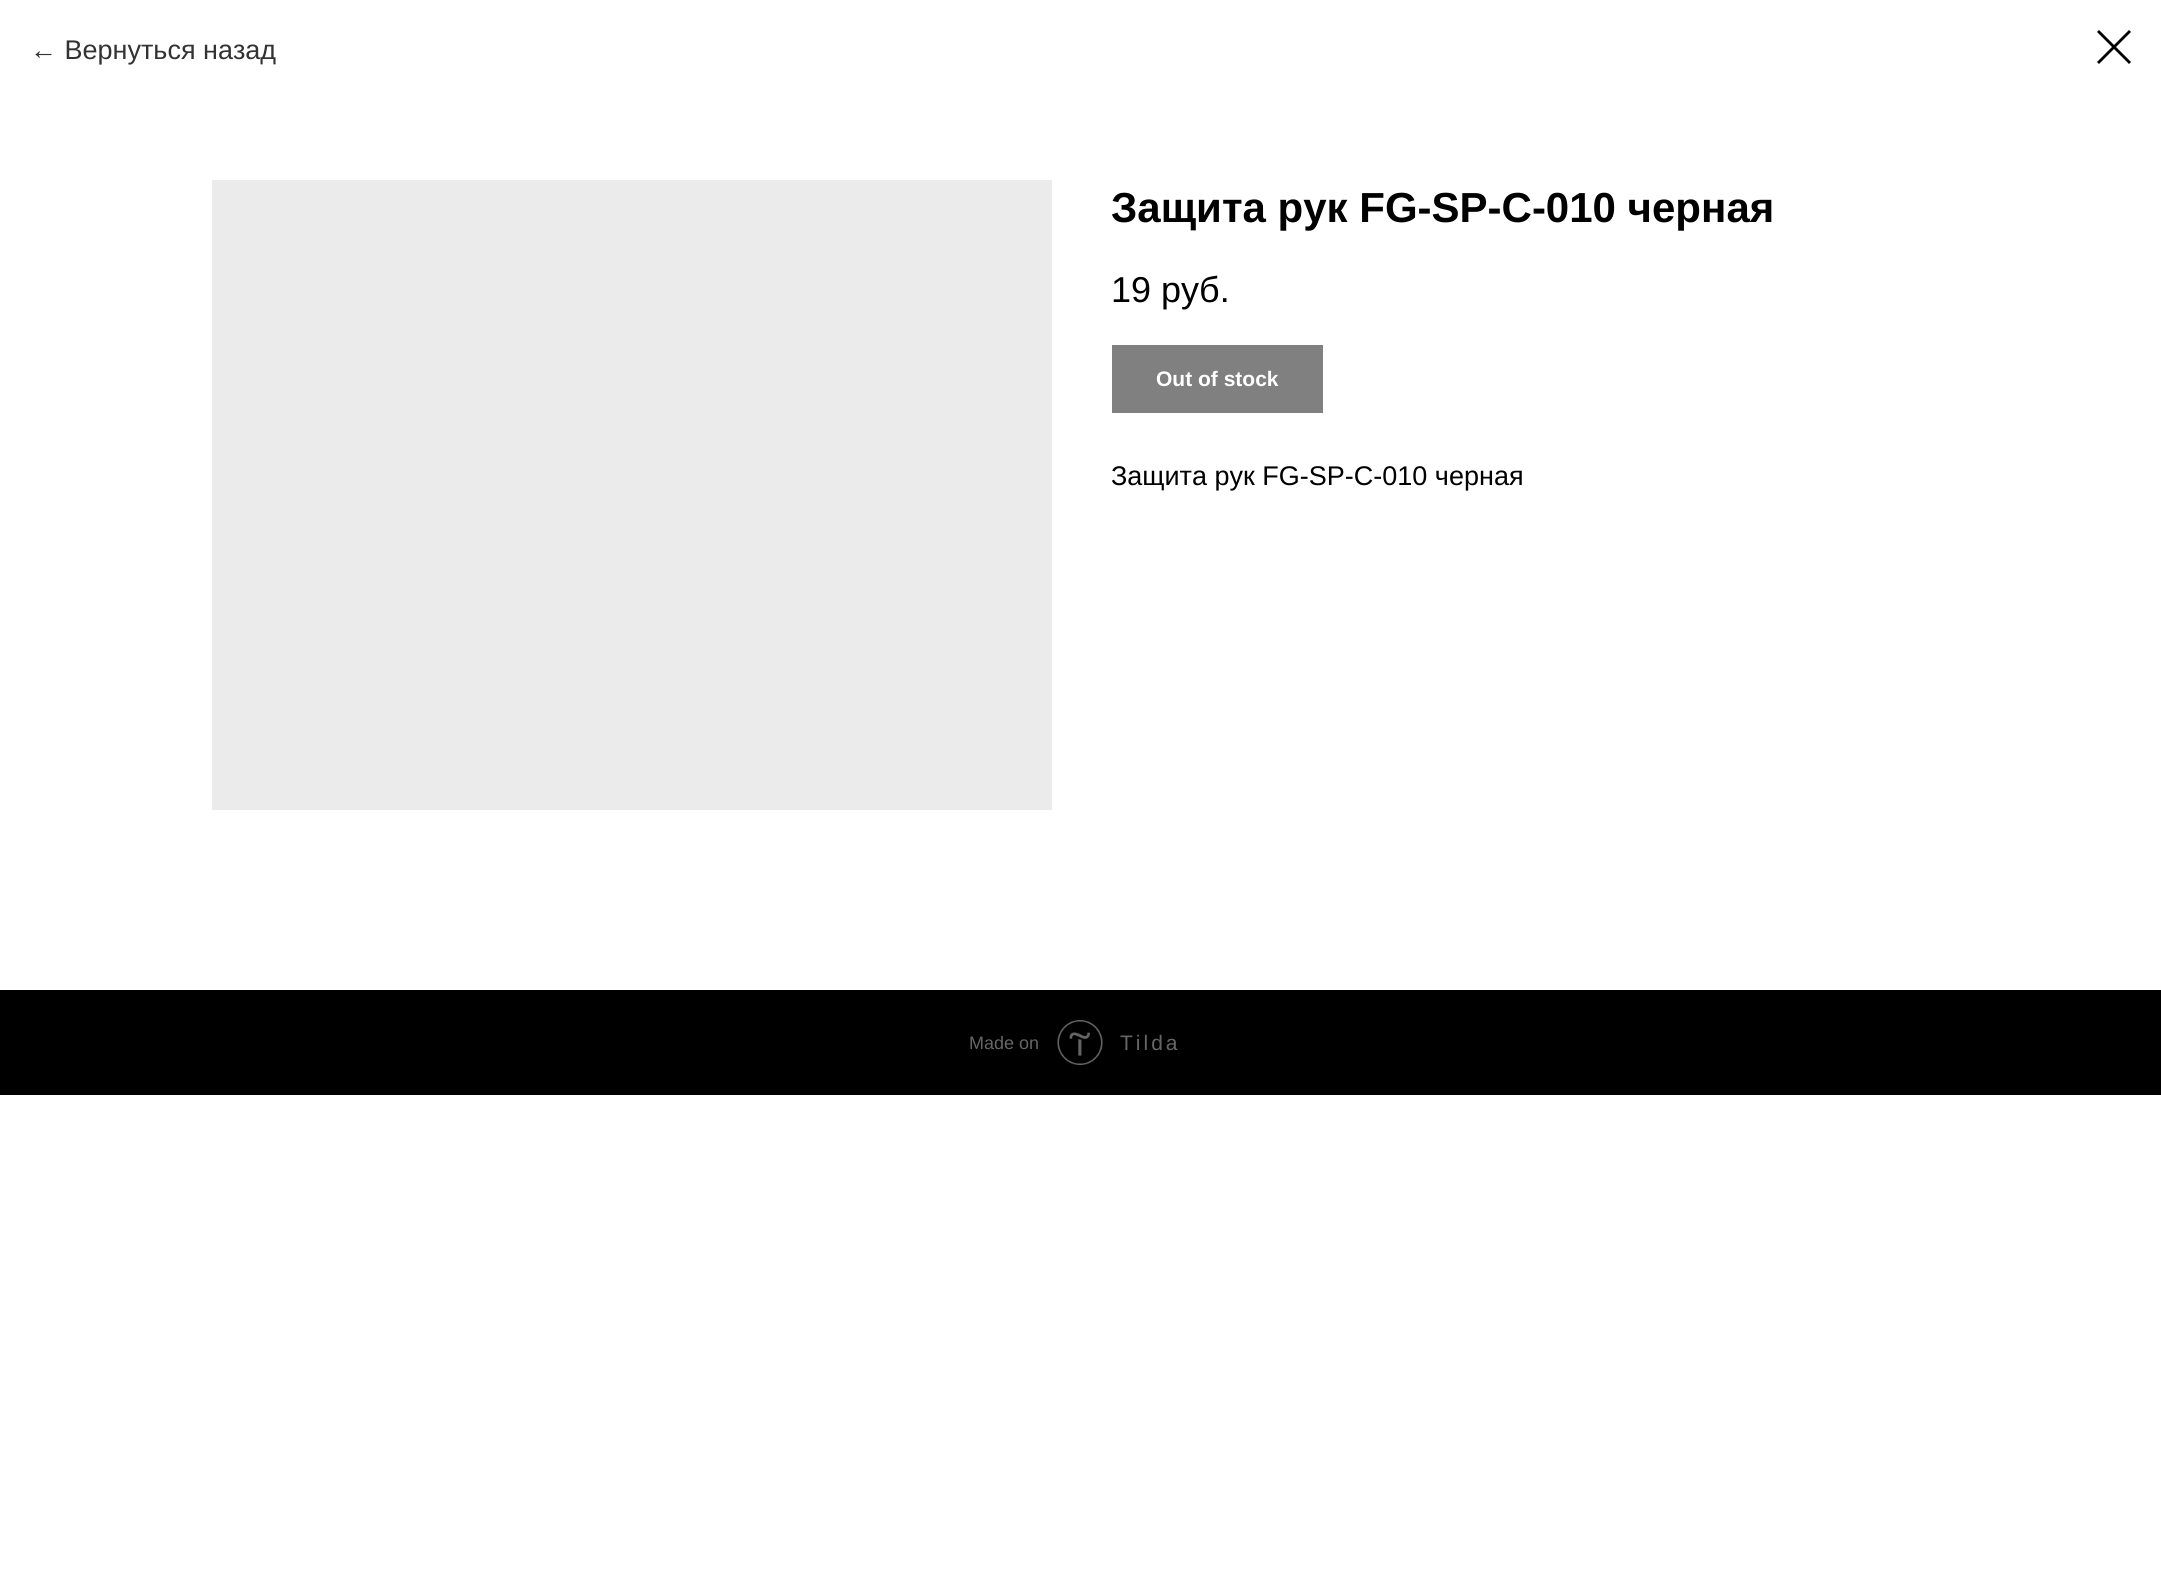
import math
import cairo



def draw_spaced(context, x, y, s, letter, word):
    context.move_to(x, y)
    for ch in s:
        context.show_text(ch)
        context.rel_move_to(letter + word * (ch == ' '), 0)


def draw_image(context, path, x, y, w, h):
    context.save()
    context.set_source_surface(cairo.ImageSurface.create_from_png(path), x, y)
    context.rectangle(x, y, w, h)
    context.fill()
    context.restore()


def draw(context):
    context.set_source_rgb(1, 1, 1)
    context.paint()
    context.set_source_rgb(0, 0, 0)
    context.set_fill_rule(cairo.FillRule.EVEN_ODD)
    context.new_path()
    context.move_to(2097, 32)
    context.line_to(2099, 30)
    context.line_to(2131, 62)
    context.line_to(2129, 64)
    context.close_path()
    context.fill()
    context.new_path()
    context.move_to(2129, 30)
    context.line_to(2131, 32)
    context.line_to(2099, 64)
    context.line_to(2097, 62)
    context.close_path()
    context.fill()
    context.set_source_rgb(235 / 255, 235 / 255, 235 / 255)
    context.rectangle(212, 180, 840, 630)
    context.fill()
    context.set_source_rgb(128 / 255, 128 / 255, 128 / 255)
    context.rectangle(1112, 345, 211, 68)
    context.fill()
    context.set_source_rgb(0, 0, 0)
    context.rectangle(0, 990, 2161, 105)
    context.fill()
    draw_image(context, "images/1.png", 1057, 1020, 46, 45)
    context.select_font_face("Liberation Sans")
    context.set_font_size(27)
    context.set_source_rgb(51 / 255, 51 / 255, 51 / 255)
    context.move_to(30, 59)
    context.show_text("← Вернуться назад")
    context.select_font_face("Liberation Sans", cairo.FontSlant.NORMAL, cairo.FontWeight.BOLD)
    context.set_font_size(42)
    context.set_source_rgb(0, 0, 0)
    context.move_to(1111, 222)
    context.show_text("Защита рук FG-SP-C-010 черная")
    context.select_font_face("Liberation Sans")
    context.set_font_size(36)
    context.move_to(1111, 302)
    context.show_text("19 руб.")
    context.select_font_face("Liberation Sans", cairo.FontSlant.NORMAL, cairo.FontWeight.BOLD)
    context.set_font_size(21)
    context.set_source_rgb(1, 1, 1)
    context.move_to(1156, 386)
    context.show_text("Out of stock")
    context.select_font_face("Liberation Sans")
    context.set_font_size(27)
    context.set_source_rgb(0, 0, 0)
    context.move_to(1111, 485)
    context.show_text("Защита рук FG-SP-C-010 черная")
    context.set_font_size(18)
    context.set_source_rgb(102 / 255, 102 / 255, 102 / 255)
    context.move_to(969, 1049)
    context.show_text("Made on")
    context.set_font_size(21)
    draw_spaced(context, 1120, 1050, "Tilda", 3, 0)


surface = cairo.ImageSurface(cairo.Format.RGB24, 2161, 1571)
context = cairo.Context(surface)
options = cairo.FontOptions()
options.set_hint_metrics(cairo.HintMetrics.OFF)
options.set_hint_style(cairo.HintStyle.NONE)
context.set_font_options(options)
context.set_miter_limit(4)
draw(context)
surface.write_to_png("out.png")
